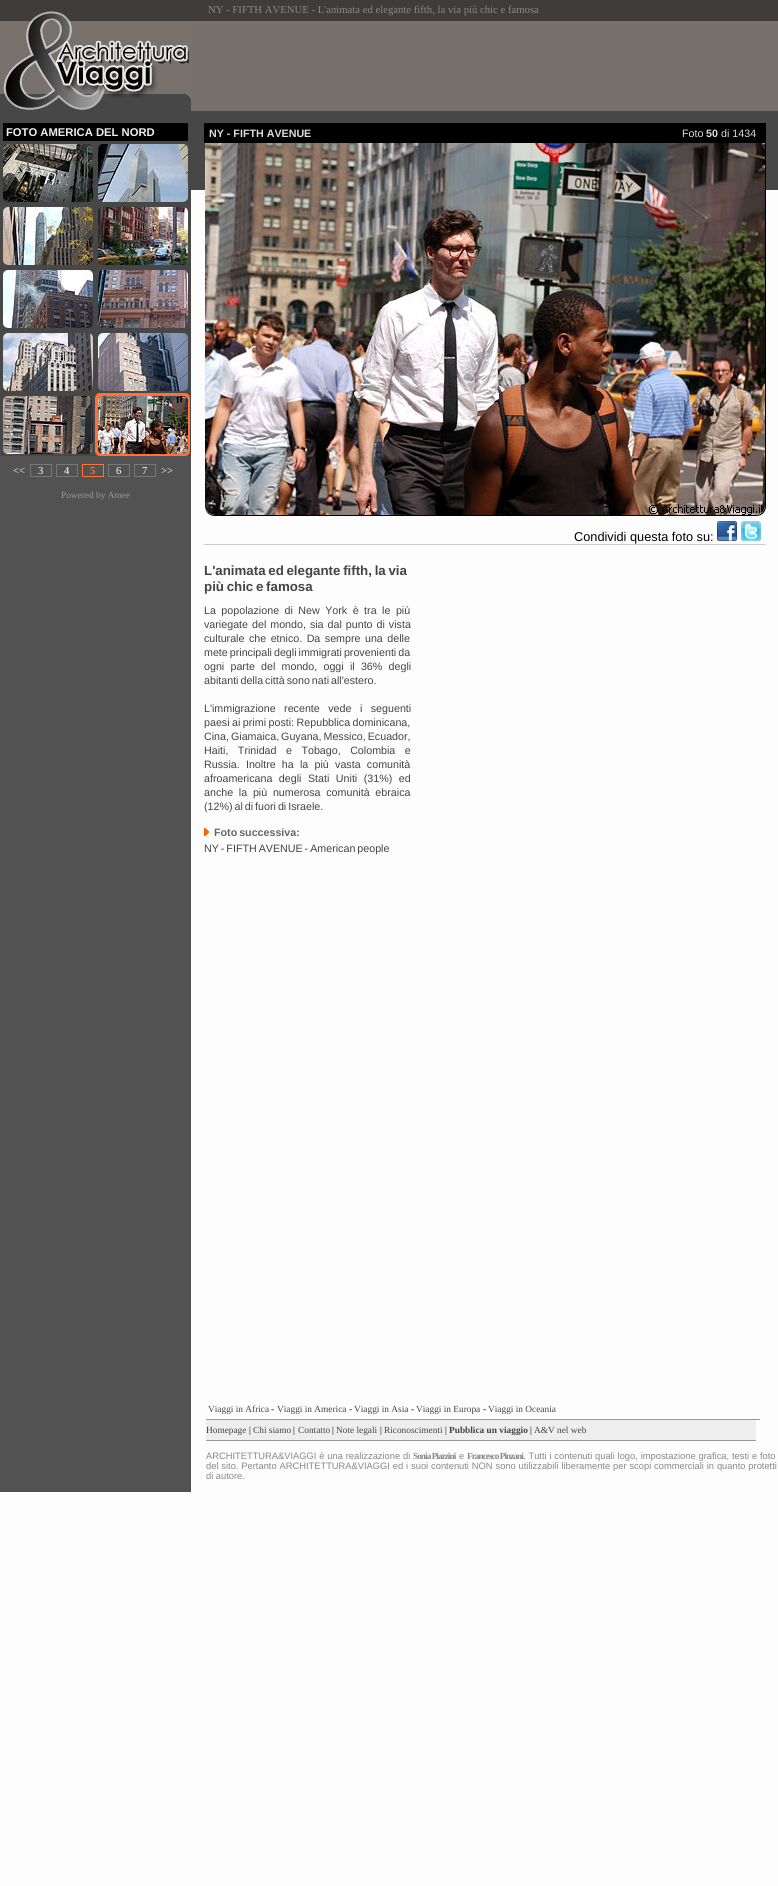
import math
import cairo



def draw_spaced(context, x, y, s, letter, word):
    context.move_to(x, y)
    for ch in s:
        context.show_text(ch)
        context.rel_move_to(letter + word * (ch == ' '), 0)


def rounded_rect(context, x, y, w, h, r):
    context.new_sub_path()
    for i, (u, v) in enumerate([(x + w - r, y + h - r), (x + r, y + h - r), (x + r, y + r), (x + w - r, y + r)]):
        context.arc(u, v, r, i * math.pi / 2, (i + 1) * math.pi / 2)
    context.close_path()


def draw_image(context, path, x, y, w, h):
    context.save()
    context.set_source_surface(cairo.ImageSurface.create_from_png(path), x, y)
    context.rectangle(x, y, w, h)
    context.fill()
    context.restore()


def draw(context):
    context.set_source_rgb(253 / 255, 253 / 255, 253 / 255)
    context.paint()
    draw_image(context, "images/1.png", 191, 0, 587, 190)
    context.set_source_rgb(82 / 255, 82 / 255, 82 / 255)
    context.rectangle(0, 456, 191, 1036)
    context.fill()
    context.set_source_rgb(71 / 255, 71 / 255, 71 / 255)
    context.rectangle(0, 111, 191, 345)
    context.fill()
    draw_image(context, "images/2.png", 0, 0, 191, 111)
    context.set_source_rgb(0, 0, 0)
    context.rectangle(3, 123, 185, 18)
    context.fill()
    draw_image(context, "images/3.png", 3, 144, 90, 58)
    draw_image(context, "images/4.png", 98, 144, 90, 58)
    draw_image(context, "images/5.png", 3, 207, 90, 58)
    draw_image(context, "images/6.png", 98, 207, 90, 58)
    draw_image(context, "images/7.png", 3, 270, 90, 58)
    draw_image(context, "images/8.png", 98, 270, 90, 58)
    draw_image(context, "images/9.png", 3, 333, 90, 58)
    draw_image(context, "images/10.png", 98, 333, 90, 58)
    draw_image(context, "images/11.png", 3, 396, 90, 58)
    context.set_source_rgb(1, 113 / 255, 54 / 255)
    rounded_rect(context, 95, 393, 95, 63, 5)
    context.fill()
    draw_image(context, "images/12.png", 98, 396, 90, 58)
    context.rectangle(30.5, 464.5, 21, 12)
    context.set_source_rgb(119 / 255, 119 / 255, 119 / 255)
    context.set_line_width(1)
    context.stroke()
    context.rectangle(56.5, 464.5, 21, 12)
    context.stroke()
    context.rectangle(82.5, 464.5, 21, 12)
    context.set_source_rgb(1, 113 / 255, 54 / 255)
    context.stroke()
    context.rectangle(108.5, 464.5, 21, 12)
    context.set_source_rgb(119 / 255, 119 / 255, 119 / 255)
    context.stroke()
    context.rectangle(134.5, 464.5, 21, 12)
    context.stroke()
    context.set_source_rgb(0, 0, 0)
    context.rectangle(204, 123, 562, 20)
    context.fill()
    context.set_fill_rule(cairo.FillRule.EVEN_ODD)
    context.new_path()
    context.move_to(205, 143)
    context.line_to(766, 143)
    context.line_to(766, 506)
    context.curve_to(766, 512, 762, 516, 756, 516)
    context.line_to(215, 516)
    context.curve_to(209, 516, 205, 512, 205, 506)
    context.close_path()
    context.move_to(205, 143)
    context.line_to(765, 143)
    context.line_to(765, 506)
    context.curve_to(765, 511, 761, 515, 756, 515)
    context.line_to(215, 515)
    context.curve_to(209, 515, 205, 511, 205, 506)
    context.close_path()
    context.fill()
    draw_image(context, "images/13.png", 205, 143, 560, 372)
    context.set_source_rgb(204 / 255, 204 / 255, 204 / 255)
    context.rectangle(204, 544, 562, 1)
    context.fill()
    draw_image(context, "images/14.png", 717, 521, 20, 20)
    draw_image(context, "images/15.png", 741, 521, 20, 20)
    draw_image(context, "images/16.png", 204, 828, 5, 8)
    context.set_source_rgb(153 / 255, 153 / 255, 153 / 255)
    context.rectangle(206, 1419, 554, 1)
    context.fill()
    context.set_source_rgb(238 / 255, 238 / 255, 238 / 255)
    context.rectangle(206, 1420, 550, 20)
    context.fill()
    context.set_source_rgb(153 / 255, 153 / 255, 153 / 255)
    context.rectangle(206, 1440, 550, 1)
    context.fill()
    context.select_font_face("Liberation Serif")
    context.set_font_size(10.7)
    context.set_source_rgb(136 / 255, 136 / 255, 136 / 255)
    context.move_to(208, 13)
    context.show_text("NY - FIFTH AVENUE - L'animata ed elegante fifth, la via più chic e famosa")
    context.select_font_face("Liberation Sans", cairo.FontSlant.NORMAL, cairo.FontWeight.BOLD)
    context.set_font_size(11.25)
    context.set_source_rgb(238 / 255, 238 / 255, 238 / 255)
    context.move_to(6, 136)
    context.show_text("FOTO AMERICA DEL NORD")
    context.select_font_face("Liberation Serif")
    context.set_font_size(10.7)
    context.set_source_rgb(252 / 255, 252 / 255, 252 / 255)
    context.move_to(13, 474)
    context.show_text("<<")
    context.move_to(38, 474)
    context.show_text("3")
    context.move_to(64, 474)
    context.show_text("4")
    context.select_font_face("Liberation Serif", cairo.FontSlant.NORMAL, cairo.FontWeight.BOLD)
    context.set_source_rgb(1, 113 / 255, 54 / 255)
    context.move_to(90, 474)
    context.show_text("5")
    context.select_font_face("Liberation Serif")
    context.set_source_rgb(252 / 255, 252 / 255, 252 / 255)
    context.move_to(116, 474)
    context.show_text("6")
    context.move_to(142, 474)
    context.show_text("7")
    context.move_to(161, 474)
    context.show_text(">>")
    context.set_font_size(9.33)
    context.set_source_rgb(153 / 255, 153 / 255, 153 / 255)
    context.move_to(61, 498)
    context.show_text("Powered by Amee")
    context.select_font_face("Liberation Sans", cairo.FontSlant.NORMAL, cairo.FontWeight.BOLD)
    context.set_font_size(10.7)
    context.set_source_rgb(221 / 255, 221 / 255, 221 / 255)
    context.move_to(209, 137)
    context.show_text("NY - FIFTH AVENUE")
    context.select_font_face("Liberation Sans")
    context.move_to(682, 137)
    context.show_text("Foto")
    context.select_font_face("Liberation Sans", cairo.FontSlant.NORMAL, cairo.FontWeight.BOLD)
    context.move_to(706, 137)
    context.show_text("50")
    context.select_font_face("Liberation Sans")
    context.move_to(721, 137)
    context.show_text("di 1434")
    context.set_font_size(12.75)
    context.set_source_rgb(0, 0, 0)
    context.move_to(574, 541)
    context.show_text("Condividi questa foto su:")
    context.select_font_face("Liberation Sans", cairo.FontSlant.NORMAL, cairo.FontWeight.BOLD)
    context.set_font_size(13.3)
    context.set_source_rgb(68 / 255, 68 / 255, 68 / 255)
    draw_spaced(context, 204, 575, "L'animata ed elegante fifth, la via", 0, -1)
    draw_spaced(context, 204, 591, "più chic e famosa", 0, -1)
    context.select_font_face("Liberation Sans")
    context.set_font_size(10.7)
    draw_spaced(context, 204, 614, "La popolazione di New York è tra le più", 0, 2.5)
    draw_spaced(context, 204, 628, "variegate del mondo, sia dal punto di vista", 0, 1)
    draw_spaced(context, 204, 642, "culturale che etnico. Da sempre una delle", 0, 1.5)
    draw_spaced(context, 204, 656, "mete principali degli immigrati provenienti da", 0, -1)
    draw_spaced(context, 204, 670, "ogni parte del mondo, oggi il 36% degli", 0, 3.25)
    draw_spaced(context, 204, 684, "abitanti della città sono nati all'estero.", 0, -1)
    draw_spaced(context, 204, 712, "L'immigrazione recente vede i seguenti", 0, 5.5)
    draw_spaced(context, 204, 726, "paesi ai primi posti: Repubblica dominicana,", 0, -0.5)
    draw_spaced(context, 204, 740, "Cina, Giamaica, Guyana, Messico, Ecuador,", 0, -1)
    draw_spaced(context, 204, 754, "Haiti, Trinidad e Tobago, Colombia e", 0, 6.5)
    draw_spaced(context, 204, 768, "Russia. Inoltre ha la più vasta comunità", 0, 3.25)
    draw_spaced(context, 204, 782, "afroamericana degli Stati Uniti (31%) ed", 0, 3.5)
    draw_spaced(context, 204, 796, "anche la più numerosa comunità ebraica", 0, 2.75)
    draw_spaced(context, 204, 810, "(12%) al di fuori di Israele.", 0, -1)
    context.select_font_face("Liberation Sans", cairo.FontSlant.NORMAL, cairo.FontWeight.BOLD)
    context.set_source_rgb(102 / 255, 102 / 255, 102 / 255)
    draw_spaced(context, 214, 836, "Foto successiva:", 0, -1)
    context.select_font_face("Liberation Sans")
    context.set_source_rgb(68 / 255, 68 / 255, 68 / 255)
    draw_spaced(context, 204, 852, "NY - FIFTH AVENUE - American people", 0, -1)
    context.select_font_face("Liberation Serif")
    context.set_font_size(9.33)
    context.move_to(208, 1412)
    context.show_text("Viaggi in Africa")
    context.set_source_rgb(0, 0, 0)
    context.move_to(271, 1412)
    context.show_text("-")
    context.set_source_rgb(68 / 255, 68 / 255, 68 / 255)
    context.move_to(277, 1412)
    context.show_text("Viaggi in America")
    context.set_source_rgb(0, 0, 0)
    context.move_to(349, 1412)
    context.show_text("-")
    context.set_source_rgb(68 / 255, 68 / 255, 68 / 255)
    context.move_to(354, 1412)
    context.show_text("Viaggi in Asia")
    context.set_source_rgb(0, 0, 0)
    context.move_to(411, 1412)
    context.show_text("-")
    context.set_source_rgb(68 / 255, 68 / 255, 68 / 255)
    context.move_to(416, 1412)
    context.show_text("Viaggi in Europa")
    context.set_source_rgb(0, 0, 0)
    context.move_to(483, 1412)
    context.show_text("-")
    context.set_source_rgb(68 / 255, 68 / 255, 68 / 255)
    context.move_to(488, 1412)
    context.show_text("Viaggi in Oceania")
    context.move_to(206, 1433)
    context.show_text("Homepage")
    context.set_source_rgb(0, 0, 0)
    context.move_to(249, 1433)
    context.show_text("|")
    context.set_source_rgb(68 / 255, 68 / 255, 68 / 255)
    context.move_to(253, 1433)
    context.show_text("Chi siamo")
    context.set_source_rgb(0, 0, 0)
    context.move_to(293, 1433)
    context.show_text("|")
    context.set_source_rgb(68 / 255, 68 / 255, 68 / 255)
    context.move_to(298, 1433)
    context.show_text("Contatto")
    context.set_source_rgb(0, 0, 0)
    context.move_to(332, 1433)
    context.show_text("|")
    context.set_source_rgb(68 / 255, 68 / 255, 68 / 255)
    context.move_to(336, 1433)
    context.show_text("Note legali")
    context.set_source_rgb(0, 0, 0)
    context.move_to(380, 1433)
    context.show_text("|")
    context.set_source_rgb(68 / 255, 68 / 255, 68 / 255)
    context.move_to(384, 1433)
    context.show_text("Riconoscimenti")
    context.set_source_rgb(0, 0, 0)
    context.move_to(445, 1433)
    context.show_text("|")
    context.select_font_face("Liberation Serif", cairo.FontSlant.NORMAL, cairo.FontWeight.BOLD)
    context.set_source_rgb(68 / 255, 68 / 255, 68 / 255)
    context.move_to(449, 1433)
    context.show_text("Pubblica un viaggio")
    context.select_font_face("Liberation Serif")
    context.set_source_rgb(0, 0, 0)
    context.move_to(530, 1433)
    context.show_text("|")
    context.set_source_rgb(68 / 255, 68 / 255, 68 / 255)
    context.move_to(534, 1433)
    context.show_text("A&V nel web")
    context.select_font_face("Liberation Sans")
    context.set_source_rgb(136 / 255, 136 / 255, 136 / 255)
    draw_spaced(context, 206, 1459, "ARCHITETTURA&VIAGGI è una realizzazione di", 0, 0.25)
    context.select_font_face("Liberation Serif", cairo.FontSlant.NORMAL, cairo.FontWeight.BOLD)
    draw_spaced(context, 413, 1459, "Sonia Piazzini", -1, 0)
    context.select_font_face("Liberation Sans")
    context.move_to(459, 1459)
    context.show_text("e")
    context.select_font_face("Liberation Serif", cairo.FontSlant.NORMAL, cairo.FontWeight.BOLD)
    draw_spaced(context, 467, 1459, "Francesco Pinzani", -1, 0)
    context.select_font_face("Liberation Sans")
    draw_spaced(context, 523, 1459, ". Tutti i contenuti quali logo, impostazione grafica, testi e foto", 0, 0.25)
    draw_spaced(context, 206, 1469, "del sito. Pertanto ARCHITETTURA&VIAGGI ed i suoi contenuti NON sono utilizzabili liberamente per scopi commerciali in quanto protetti", 0, 0.3)
    context.move_to(206, 1479)
    context.show_text("di autore.")


surface = cairo.ImageSurface(cairo.Format.RGB24, 778, 1886)
context = cairo.Context(surface)
options = cairo.FontOptions()
options.set_hint_metrics(cairo.HintMetrics.OFF)
options.set_hint_style(cairo.HintStyle.NONE)
context.set_font_options(options)
context.set_miter_limit(4)
draw(context)
surface.write_to_png("out.png")
